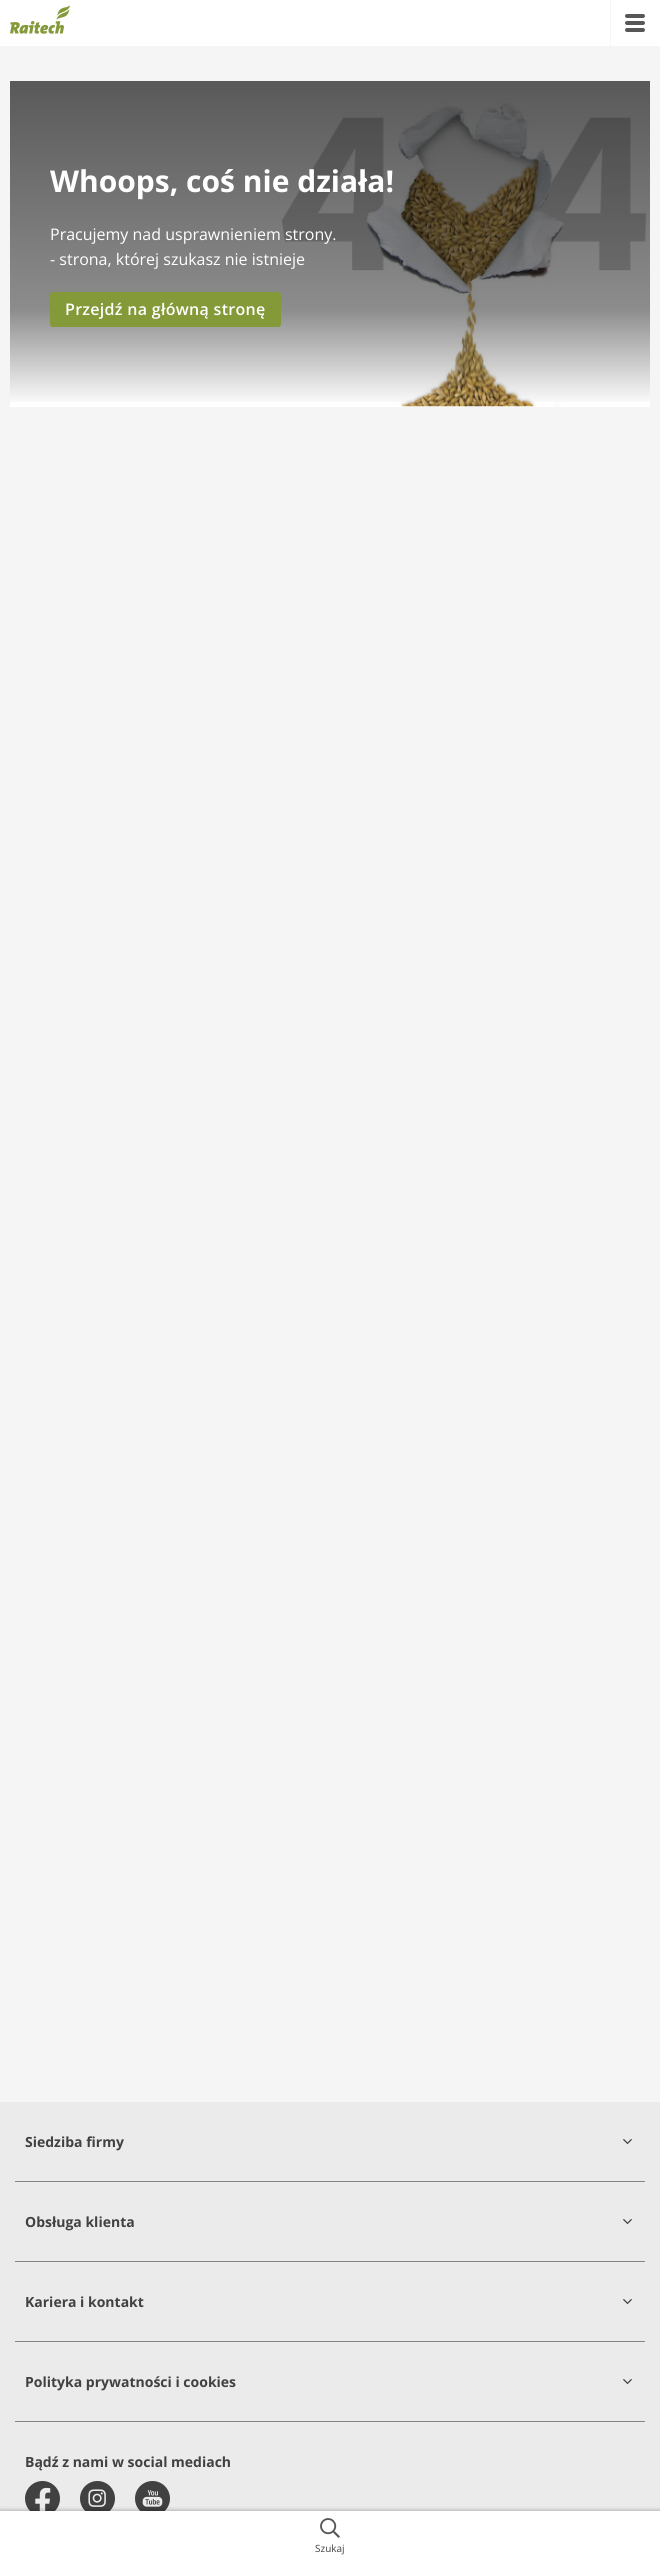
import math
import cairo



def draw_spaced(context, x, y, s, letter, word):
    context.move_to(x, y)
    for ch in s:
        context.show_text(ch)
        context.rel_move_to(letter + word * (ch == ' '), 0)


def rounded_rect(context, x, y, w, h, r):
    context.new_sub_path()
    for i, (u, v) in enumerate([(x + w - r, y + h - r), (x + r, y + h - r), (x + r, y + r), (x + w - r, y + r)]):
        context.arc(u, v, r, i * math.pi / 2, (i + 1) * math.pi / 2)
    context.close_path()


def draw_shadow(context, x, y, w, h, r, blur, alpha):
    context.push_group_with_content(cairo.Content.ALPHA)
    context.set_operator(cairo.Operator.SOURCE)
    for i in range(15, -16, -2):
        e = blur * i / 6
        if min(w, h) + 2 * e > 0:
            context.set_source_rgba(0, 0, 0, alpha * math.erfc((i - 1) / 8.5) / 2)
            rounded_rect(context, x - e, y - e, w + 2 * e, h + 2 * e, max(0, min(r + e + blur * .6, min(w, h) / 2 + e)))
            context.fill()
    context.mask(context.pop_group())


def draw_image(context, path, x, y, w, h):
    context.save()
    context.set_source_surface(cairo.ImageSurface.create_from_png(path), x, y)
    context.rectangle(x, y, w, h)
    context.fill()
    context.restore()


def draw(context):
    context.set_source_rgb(1, 1, 1)
    context.paint()
    draw_image(context, "images/1.png", 10, 5, 60, 29)
    context.set_source_rgb(245 / 255, 245 / 255, 245 / 255)
    context.rectangle(610, 0, 1, 46)
    context.fill()
    context.set_source_rgb(87 / 255, 87 / 255, 87 / 255)
    rounded_rect(context, 625, 14, 20, 4, 2)
    context.fill()
    rounded_rect(context, 625, 21, 20, 4, 2)
    context.fill()
    rounded_rect(context, 625, 28, 20, 4, 2)
    context.fill()
    context.set_source_rgb(245 / 255, 245 / 255, 245 / 255)
    context.rectangle(0, 46, 660, 2056)
    context.fill()
    context.set_source_rgb(1, 1, 1)
    context.rectangle(10, 81, 640, 326)
    context.fill()
    draw_image(context, "images/2.png", 282, 103, 365, 304)
    gradient = cairo.LinearGradient(330, 81, 330, 407)
    gradient.add_color_stop_rgba(0, 0, 0, 0, 0.65)
    gradient.add_color_stop_rgba(0.7, 0, 0, 0, 0.45)
    gradient.add_color_stop_rgba(1, 0, 0, 0, 0)
    context.set_source(gradient)
    context.rectangle(10, 81, 640, 321)
    context.fill()
    context.set_source_rgb(132 / 255, 153 / 255, 56 / 255)
    rounded_rect(context, 50, 292, 231, 35, 3)
    context.fill()
    context.set_source_rgb(235 / 255, 235 / 255, 235 / 255)
    context.rectangle(0, 2102, 660, 409)
    context.fill()
    context.set_source_rgb(133 / 255, 133 / 255, 133 / 255)
    context.rectangle(15, 2181, 630, 1)
    context.fill()
    draw_image(context, "images/3.png", 623, 2139, 9, 5)
    context.rectangle(15, 2261, 630, 1)
    context.fill()
    draw_image(context, "images/3.png", 623, 2219, 9, 5)
    context.rectangle(15, 2341, 630, 1)
    context.fill()
    draw_image(context, "images/3.png", 623, 2299, 9, 5)
    context.rectangle(15, 2421, 630, 1)
    context.fill()
    draw_image(context, "images/3.png", 623, 2379, 9, 5)
    draw_image(context, "images/4.png", 25, 2481, 35, 30)
    draw_image(context, "images/5.png", 80, 2481, 35, 30)
    draw_image(context, "images/6.png", 135, 2481, 35, 30)
    context.set_source_rgb(0, 0, 0)
    draw_shadow(context, 0, 2510, 660, 50, 0, 2, 0.25)
    context.set_source_rgb(1, 1, 1)
    context.rectangle(0, 2511, 660, 50)
    context.fill()
    draw_image(context, "images/7.png", 320, 2518, 20, 20)
    context.select_font_face("Open Sans", cairo.FontSlant.NORMAL, cairo.FontWeight.BOLD)
    context.set_font_size(30)
    context.move_to(50, 192)
    context.show_text("Whoops, coś nie działa!")
    context.select_font_face("Open Sans")
    context.set_font_size(16)
    context.move_to(50, 240)
    context.show_text("Pracujemy nad usprawnieniem strony.")
    context.move_to(50, 265)
    context.show_text("- strona, której szukasz nie istnieje")
    context.select_font_face("Open Sans SemiBold")
    draw_spaced(context, 65, 315, "Przejdź na główną stronę", 0.3, 0)
    context.select_font_face("Open Sans", cairo.FontSlant.NORMAL, cairo.FontWeight.BOLD)
    context.set_font_size(14)
    context.set_source_rgb(65 / 255, 65 / 255, 66 / 255)
    context.move_to(25, 2147)
    context.show_text("Siedziba firmy")
    context.move_to(25, 2227)
    context.show_text("Obsługa klienta")
    context.move_to(25, 2307)
    context.show_text("Kariera i kontakt")
    context.move_to(25, 2387)
    context.show_text("Polityka prywatności i cookies")
    context.move_to(25, 2467)
    context.show_text("Bądź z nami w social mediach")
    context.select_font_face("Open Sans")
    context.set_font_size(10)
    context.move_to(315, 2552)
    context.show_text("Szukaj")


surface = cairo.ImageSurface(cairo.Format.RGB24, 660, 2561)
context = cairo.Context(surface)
options = cairo.FontOptions()
options.set_hint_metrics(cairo.HintMetrics.OFF)
options.set_hint_style(cairo.HintStyle.NONE)
context.set_font_options(options)
context.set_miter_limit(4)
draw(context)
surface.write_to_png("out.png")
